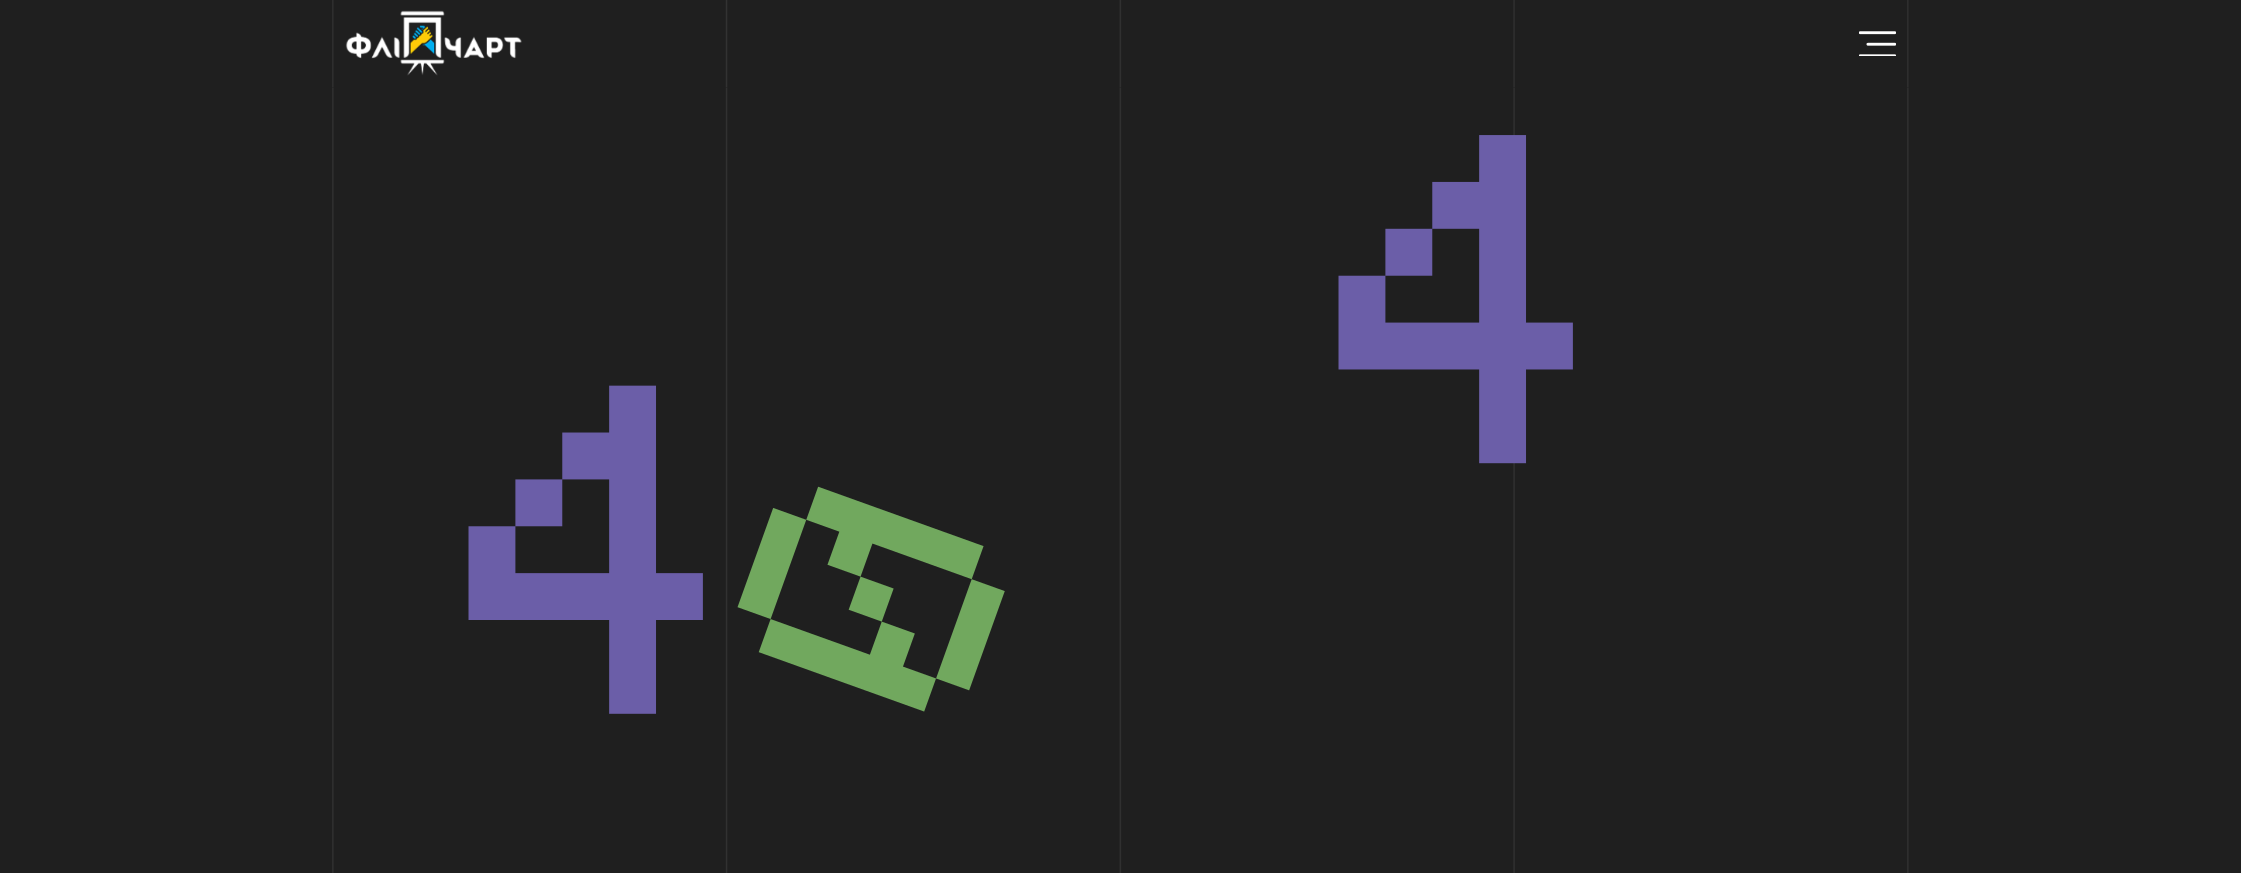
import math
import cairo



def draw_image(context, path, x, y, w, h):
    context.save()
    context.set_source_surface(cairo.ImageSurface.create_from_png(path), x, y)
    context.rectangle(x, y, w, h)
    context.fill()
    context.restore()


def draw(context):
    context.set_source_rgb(31 / 255, 31 / 255, 31 / 255)
    context.paint()
    draw_image(context, "images/1.png", 332, 88, 1577, 785)
    draw_image(context, "images/2.png", 332, 0, 1577, 88)
    draw_image(context, "images/3.png", 345, 10, 177, 66)
    draw_image(context, "images/4.png", 1859, 31, 37, 25)
    draw_image(context, "images/5.png", 468, 135, 1105, 579)


surface = cairo.ImageSurface(cairo.Format.RGB24, 2241, 873)
context = cairo.Context(surface)
options = cairo.FontOptions()
options.set_hint_metrics(cairo.HintMetrics.OFF)
options.set_hint_style(cairo.HintStyle.NONE)
context.set_font_options(options)
context.set_miter_limit(4)
draw(context)
surface.write_to_png("out.png")
